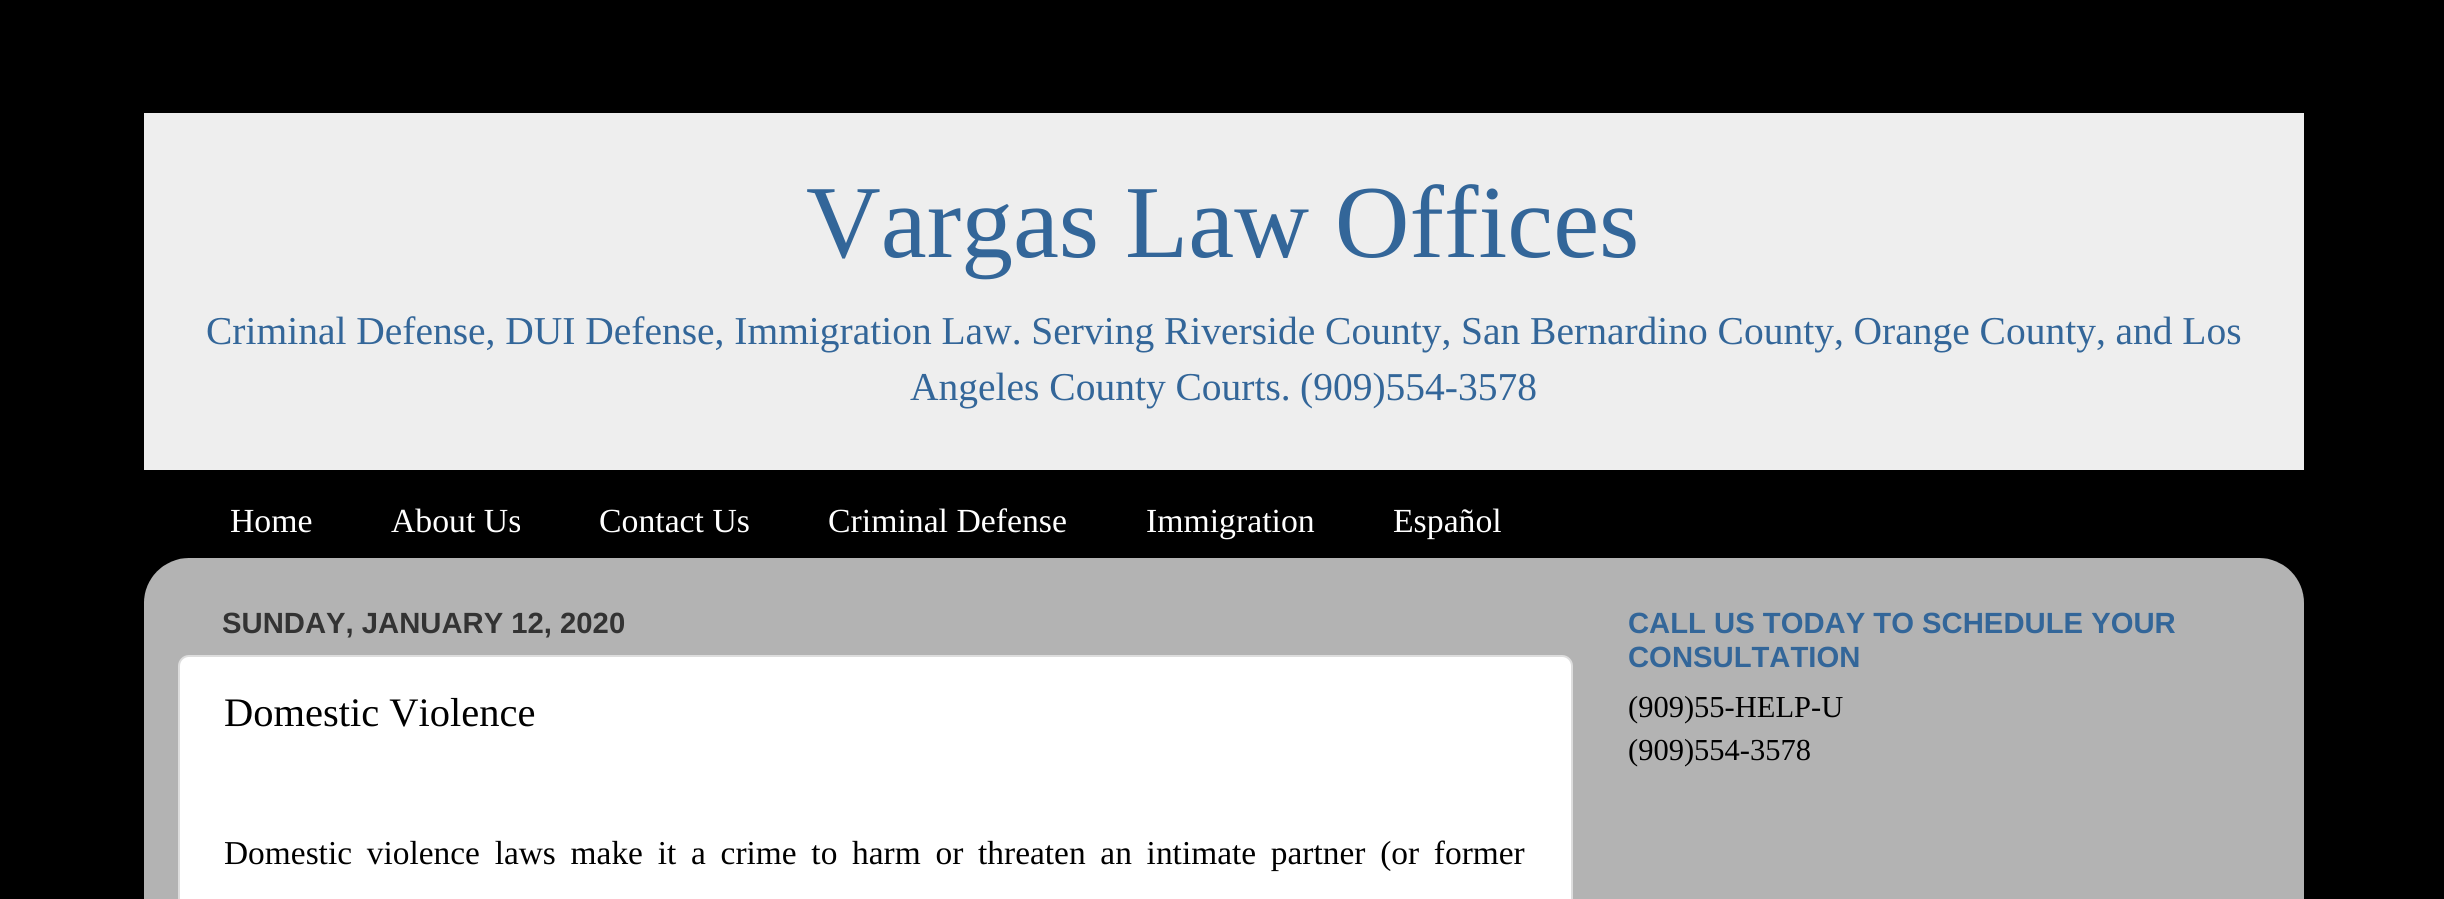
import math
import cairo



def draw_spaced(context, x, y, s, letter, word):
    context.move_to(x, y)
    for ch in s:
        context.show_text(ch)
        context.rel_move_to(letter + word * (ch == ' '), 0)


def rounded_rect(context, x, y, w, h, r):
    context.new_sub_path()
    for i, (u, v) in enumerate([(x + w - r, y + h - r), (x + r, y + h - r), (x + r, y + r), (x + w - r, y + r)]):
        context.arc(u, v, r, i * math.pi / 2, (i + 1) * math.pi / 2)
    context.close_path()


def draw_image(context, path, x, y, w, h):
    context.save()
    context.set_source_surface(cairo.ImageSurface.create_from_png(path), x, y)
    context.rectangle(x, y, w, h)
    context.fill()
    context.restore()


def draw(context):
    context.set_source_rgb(0, 0, 0)
    context.paint()
    context.set_source_rgb(238 / 255, 238 / 255, 238 / 255)
    context.rectangle(144, 113, 2160, 357)
    context.fill()
    draw_image(context, "images/1.png", 144, 558, 2160, 341)
    context.set_source_rgb(1, 1, 1)
    rounded_rect(context, 179, 656, 1393, 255, 10)
    context.fill_preserve()
    context.set_source_rgb(221 / 255, 221 / 255, 221 / 255)
    context.stroke()
    context.select_font_face("Liberation Serif")
    context.set_font_size(103.5)
    context.set_source_rgb(51 / 255, 102 / 255, 153 / 255)
    context.move_to(806, 257)
    context.show_text("Vargas Law Offices")
    context.set_font_size(39.5)
    draw_spaced(context, 206, 344, "Criminal Defense, DUI Defense, Immigration Law. Serving Riverside County, San Bernardino County, Orange County, and Los", 0, -0.1)
    context.move_to(910, 400)
    context.show_text("Angeles County Courts.")
    context.move_to(1300, 400)
    context.show_text("(909)554-3578")
    context.set_font_size(33.75)
    context.set_source_rgb(1, 1, 1)
    context.move_to(230, 532)
    context.show_text("Home")
    context.move_to(391, 532)
    context.show_text("About Us")
    context.move_to(599, 532)
    context.show_text("Contact Us")
    context.move_to(828, 532)
    context.show_text("Criminal Defense")
    context.move_to(1146, 532)
    context.show_text("Immigration")
    context.move_to(1393, 532)
    context.show_text("Español")
    context.select_font_face("Liberation Sans", cairo.FontSlant.NORMAL, cairo.FontWeight.BOLD)
    context.set_font_size(29.25)
    context.set_source_rgb(51 / 255, 51 / 255, 51 / 255)
    context.move_to(222, 633)
    context.show_text("SUNDAY, JANUARY 12, 2020")
    context.select_font_face("Liberation Serif")
    context.set_font_size(40.5)
    context.set_source_rgb(0, 0, 0)
    context.move_to(224, 726)
    context.show_text("Domestic Violence")
    context.set_font_size(33.4)
    draw_spaced(context, 224, 864, "Domestic violence laws make it a crime to harm or threaten an intimate partner (or former", 0, 6.4)
    context.select_font_face("Liberation Sans", cairo.FontSlant.NORMAL, cairo.FontWeight.BOLD)
    context.set_font_size(29.25)
    context.set_source_rgb(51 / 255, 102 / 255, 153 / 255)
    context.move_to(1628, 633)
    context.show_text("CALL US TODAY TO SCHEDULE YOUR")
    context.move_to(1628, 667)
    context.show_text("CONSULTATION")
    context.select_font_face("Liberation Serif")
    context.set_font_size(30.5)
    context.set_source_rgb(0, 0, 0)
    context.move_to(1628, 717)
    context.show_text("(909)55-HELP-U")
    context.move_to(1628, 760)
    context.show_text("(909)554-3578")


surface = cairo.ImageSurface(cairo.Format.RGB24, 2444, 899)
context = cairo.Context(surface)
options = cairo.FontOptions()
options.set_hint_metrics(cairo.HintMetrics.OFF)
options.set_hint_style(cairo.HintStyle.NONE)
context.set_font_options(options)
context.set_miter_limit(4)
draw(context)
surface.write_to_png("out.png")
